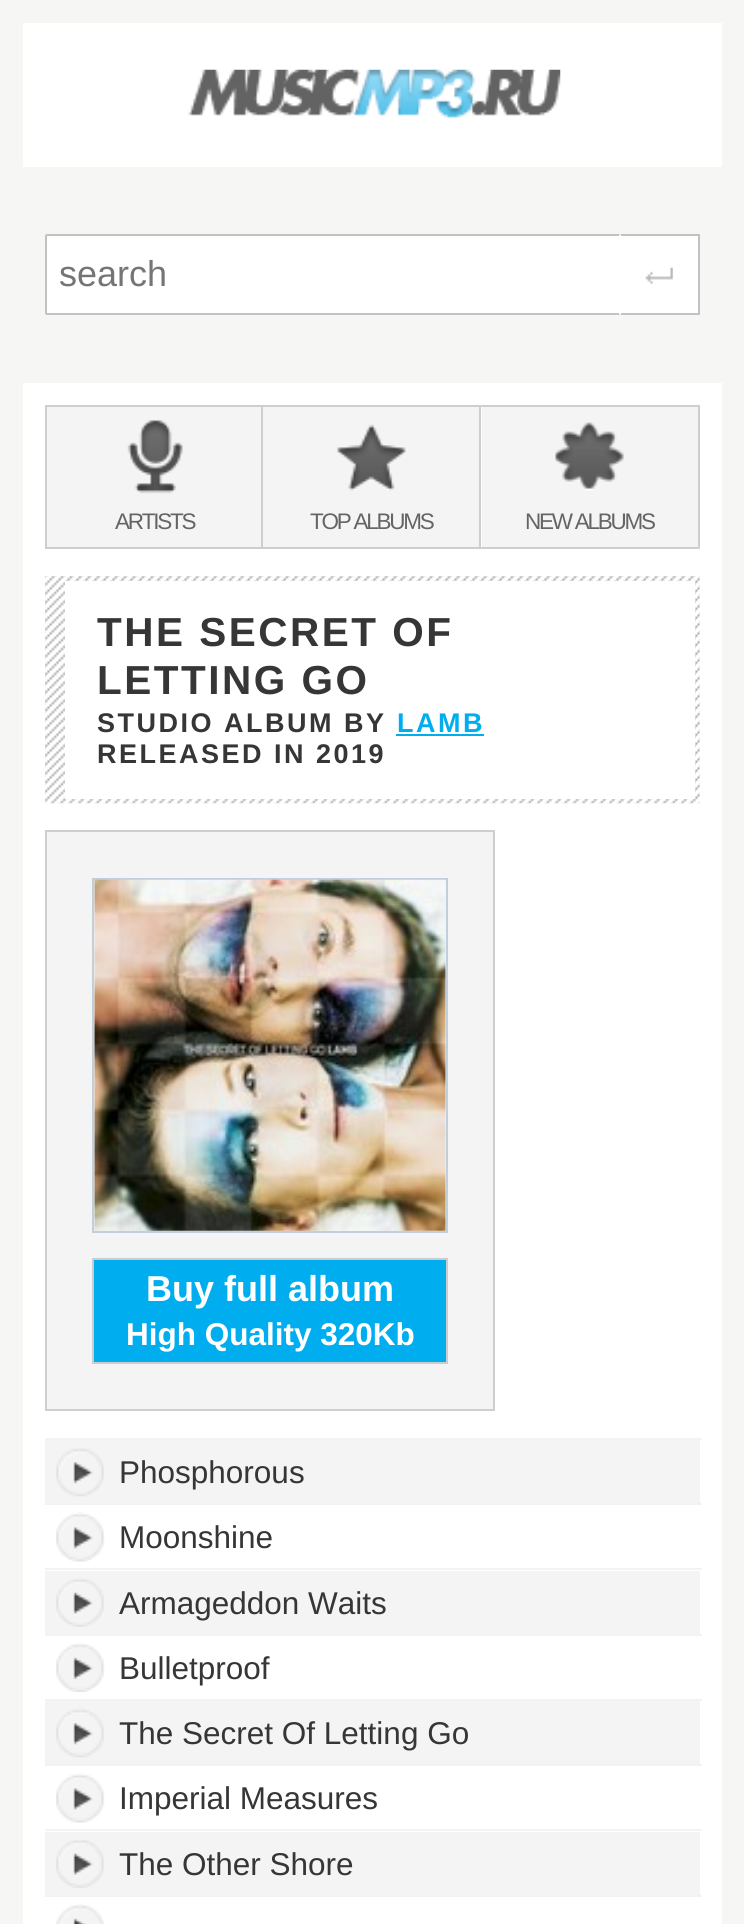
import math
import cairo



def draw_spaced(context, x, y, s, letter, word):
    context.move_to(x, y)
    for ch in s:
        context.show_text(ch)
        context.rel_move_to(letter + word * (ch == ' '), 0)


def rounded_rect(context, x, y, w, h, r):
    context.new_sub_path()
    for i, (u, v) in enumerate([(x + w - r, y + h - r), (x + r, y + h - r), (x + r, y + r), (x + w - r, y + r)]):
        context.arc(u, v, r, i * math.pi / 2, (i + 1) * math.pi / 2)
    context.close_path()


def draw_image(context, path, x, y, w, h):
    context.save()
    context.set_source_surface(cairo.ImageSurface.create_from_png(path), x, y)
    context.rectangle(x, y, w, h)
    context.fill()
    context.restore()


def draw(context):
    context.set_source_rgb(246 / 255, 247 / 255, 245 / 255)
    context.paint()
    context.set_source_rgb(1, 1, 1)
    context.rectangle(23, 23, 699, 144)
    context.fill()
    draw_image(context, "images/1.png", 188, 69, 373, 49)
    rounded_rect(context, 46, 235, 653, 79, 1)
    context.fill_preserve()
    context.set_source_rgb(194 / 255, 194 / 255, 194 / 255)
    context.stroke()
    context.set_source_rgb(1, 1, 1)
    rounded_rect(context, 619, 234, 81, 81, 2)
    context.fill()
    draw_image(context, "images/2.png", 645, 267, 28, 17)
    context.set_source_rgb(194 / 255, 194 / 255, 194 / 255)
    context.rectangle(621, 234, 79, 2)
    context.fill()
    context.rectangle(698, 236, 2, 79)
    context.fill()
    context.rectangle(621, 313, 79, 2)
    context.fill()
    context.set_source_rgb(1, 1, 1)
    context.rectangle(23, 383, 699, 1541)
    context.fill()
    context.set_source_rgb(244 / 255, 244 / 255, 244 / 255)
    context.rectangle(46, 406, 216, 142)
    context.fill_preserve()
    context.set_source_rgb(207 / 255, 206 / 255, 206 / 255)
    context.stroke()
    draw_image(context, "images/3.png", 127, 420, 56, 74)
    context.set_source_rgb(244 / 255, 244 / 255, 244 / 255)
    context.rectangle(263, 407, 216, 140)
    context.fill()
    context.set_source_rgb(207 / 255, 206 / 255, 206 / 255)
    context.rectangle(263, 405, 437, 2)
    context.fill()
    context.rectangle(479, 405, 2, 144)
    context.fill()
    context.rectangle(263, 547, 219, 2)
    context.fill()
    draw_image(context, "images/4.png", 337, 424, 69, 67)
    context.set_source_rgb(244 / 255, 244 / 255, 244 / 255)
    context.rectangle(482, 407, 216, 140)
    context.fill()
    context.set_source_rgb(207 / 255, 206 / 255, 206 / 255)
    context.rectangle(698, 405, 2, 144)
    context.fill()
    context.rectangle(482, 547, 218, 2)
    context.fill()
    draw_image(context, "images/5.png", 555, 422, 69, 69)
    draw_image(context, "images/6.png", 45, 576, 655, 228)
    context.set_source_rgb(1, 1, 1)
    context.rectangle(65, 581, 630, 218)
    context.fill()
    context.set_source_rgb(0, 174 / 255, 239 / 255)
    context.rectangle(396, 734, 88, 2)
    context.fill()
    context.set_source_rgb(244 / 255, 244 / 255, 244 / 255)
    context.rectangle(46, 831, 448, 579)
    context.fill_preserve()
    context.set_source_rgb(207 / 255, 206 / 255, 206 / 255)
    context.stroke()
    context.rectangle(93, 879, 354, 353)
    context.set_source_rgb(193 / 255, 207 / 255, 220 / 255)
    context.stroke()
    draw_image(context, "images/7.png", 94, 879, 352, 352)
    context.set_source_rgb(0, 174 / 255, 239 / 255)
    context.rectangle(93, 1259, 354, 104)
    context.fill_preserve()
    context.set_source_rgb(204 / 255, 204 / 255, 204 / 255)
    context.stroke()
    context.set_source_rgb(244 / 255, 244 / 255, 244 / 255)
    context.rectangle(45, 1440, 655, 63)
    context.fill()
    context.set_source_rgb(243 / 255, 243 / 255, 243 / 255)
    context.rectangle(45, 1438, 657, 2)
    context.fill()
    draw_image(context, "images/8.png", 56, 1447, 48, 50)
    context.rectangle(45, 1503, 657, 2)
    context.fill()
    draw_image(context, "images/9.png", 56, 1512, 49, 50)
    context.set_source_rgb(244 / 255, 244 / 255, 244 / 255)
    context.rectangle(45, 1571, 655, 63)
    context.fill()
    context.set_source_rgb(243 / 255, 243 / 255, 243 / 255)
    context.rectangle(45, 1568, 657, 2)
    context.fill()
    draw_image(context, "images/10.png", 56, 1578, 48, 49)
    context.rectangle(45, 1634, 657, 2)
    context.fill()
    draw_image(context, "images/11.png", 56, 1643, 49, 49)
    context.set_source_rgb(244 / 255, 244 / 255, 244 / 255)
    context.rectangle(45, 1701, 655, 63)
    context.fill()
    context.set_source_rgb(243 / 255, 243 / 255, 243 / 255)
    context.rectangle(45, 1699, 657, 2)
    context.fill()
    draw_image(context, "images/8.png", 56, 1708, 48, 50)
    context.rectangle(45, 1764, 657, 2)
    context.fill()
    draw_image(context, "images/9.png", 56, 1773, 49, 50)
    context.set_source_rgb(244 / 255, 244 / 255, 244 / 255)
    context.rectangle(45, 1832, 655, 63)
    context.fill()
    context.set_source_rgb(243 / 255, 243 / 255, 243 / 255)
    context.rectangle(45, 1829, 657, 2)
    context.fill()
    draw_image(context, "images/10.png", 56, 1839, 48, 49)
    context.rectangle(45, 1895, 657, 2)
    context.fill()
    draw_image(context, "images/12.png", 56, 1904, 48, 20)
    context.select_font_face("Liberation Sans")
    context.set_font_size(36)
    context.set_source_rgb(117 / 255, 117 / 255, 117 / 255)
    context.move_to(59, 286)
    context.show_text("search")
    context.set_font_size(22.5)
    context.set_source_rgb(99 / 255, 100 / 255, 101 / 255)
    draw_spaced(context, 115, 529, "ARTISTS", -2.25, 0)
    draw_spaced(context, 310, 529, "TOP ALBUMS", -2.25, 0)
    draw_spaced(context, 525, 529, "NEW ALBUMS", -2.25, 0)
    context.select_font_face("Liberation Sans", cairo.FontSlant.NORMAL, cairo.FontWeight.BOLD)
    context.set_font_size(40.5)
    context.set_source_rgb(54 / 255, 54 / 255, 54 / 255)
    draw_spaced(context, 97, 646, "THE SECRET OF", 2.5, 0)
    draw_spaced(context, 97, 694, "LETTING GO", 2.5, 0)
    context.set_font_size(27)
    draw_spaced(context, 97, 732, "STUDIO ALBUM BY", 2.5, 0)
    context.set_source_rgb(0, 174 / 255, 239 / 255)
    draw_spaced(context, 397, 732, "LAMB", 2.5, 0)
    context.set_source_rgb(54 / 255, 54 / 255, 54 / 255)
    draw_spaced(context, 97, 763, "RELEASED IN 2019", 2.5, 0)
    context.set_font_size(36)
    context.set_source_rgb(1, 1, 1)
    context.move_to(146, 1301)
    context.show_text("Buy full album")
    context.set_font_size(31.5)
    context.move_to(126, 1345)
    context.show_text("High Quality 320Kb")
    context.select_font_face("Liberation Sans")
    context.set_source_rgb(54 / 255, 54 / 255, 54 / 255)
    context.move_to(119, 1483)
    context.show_text("Phosphorous")
    context.move_to(119, 1548)
    context.show_text("Moonshine")
    context.move_to(119, 1614)
    context.show_text("Armageddon Waits")
    context.move_to(119, 1679)
    context.show_text("Bulletproof")
    context.move_to(119, 1744)
    context.show_text("The Secret Of Letting Go")
    context.move_to(119, 1809)
    context.show_text("Imperial Measures")
    context.move_to(119, 1875)
    context.show_text("The Other Shore")


surface = cairo.ImageSurface(cairo.Format.RGB24, 744, 1924)
context = cairo.Context(surface)
options = cairo.FontOptions()
options.set_hint_metrics(cairo.HintMetrics.OFF)
options.set_hint_style(cairo.HintStyle.NONE)
context.set_font_options(options)
context.set_miter_limit(4)
draw(context)
surface.write_to_png("out.png")
